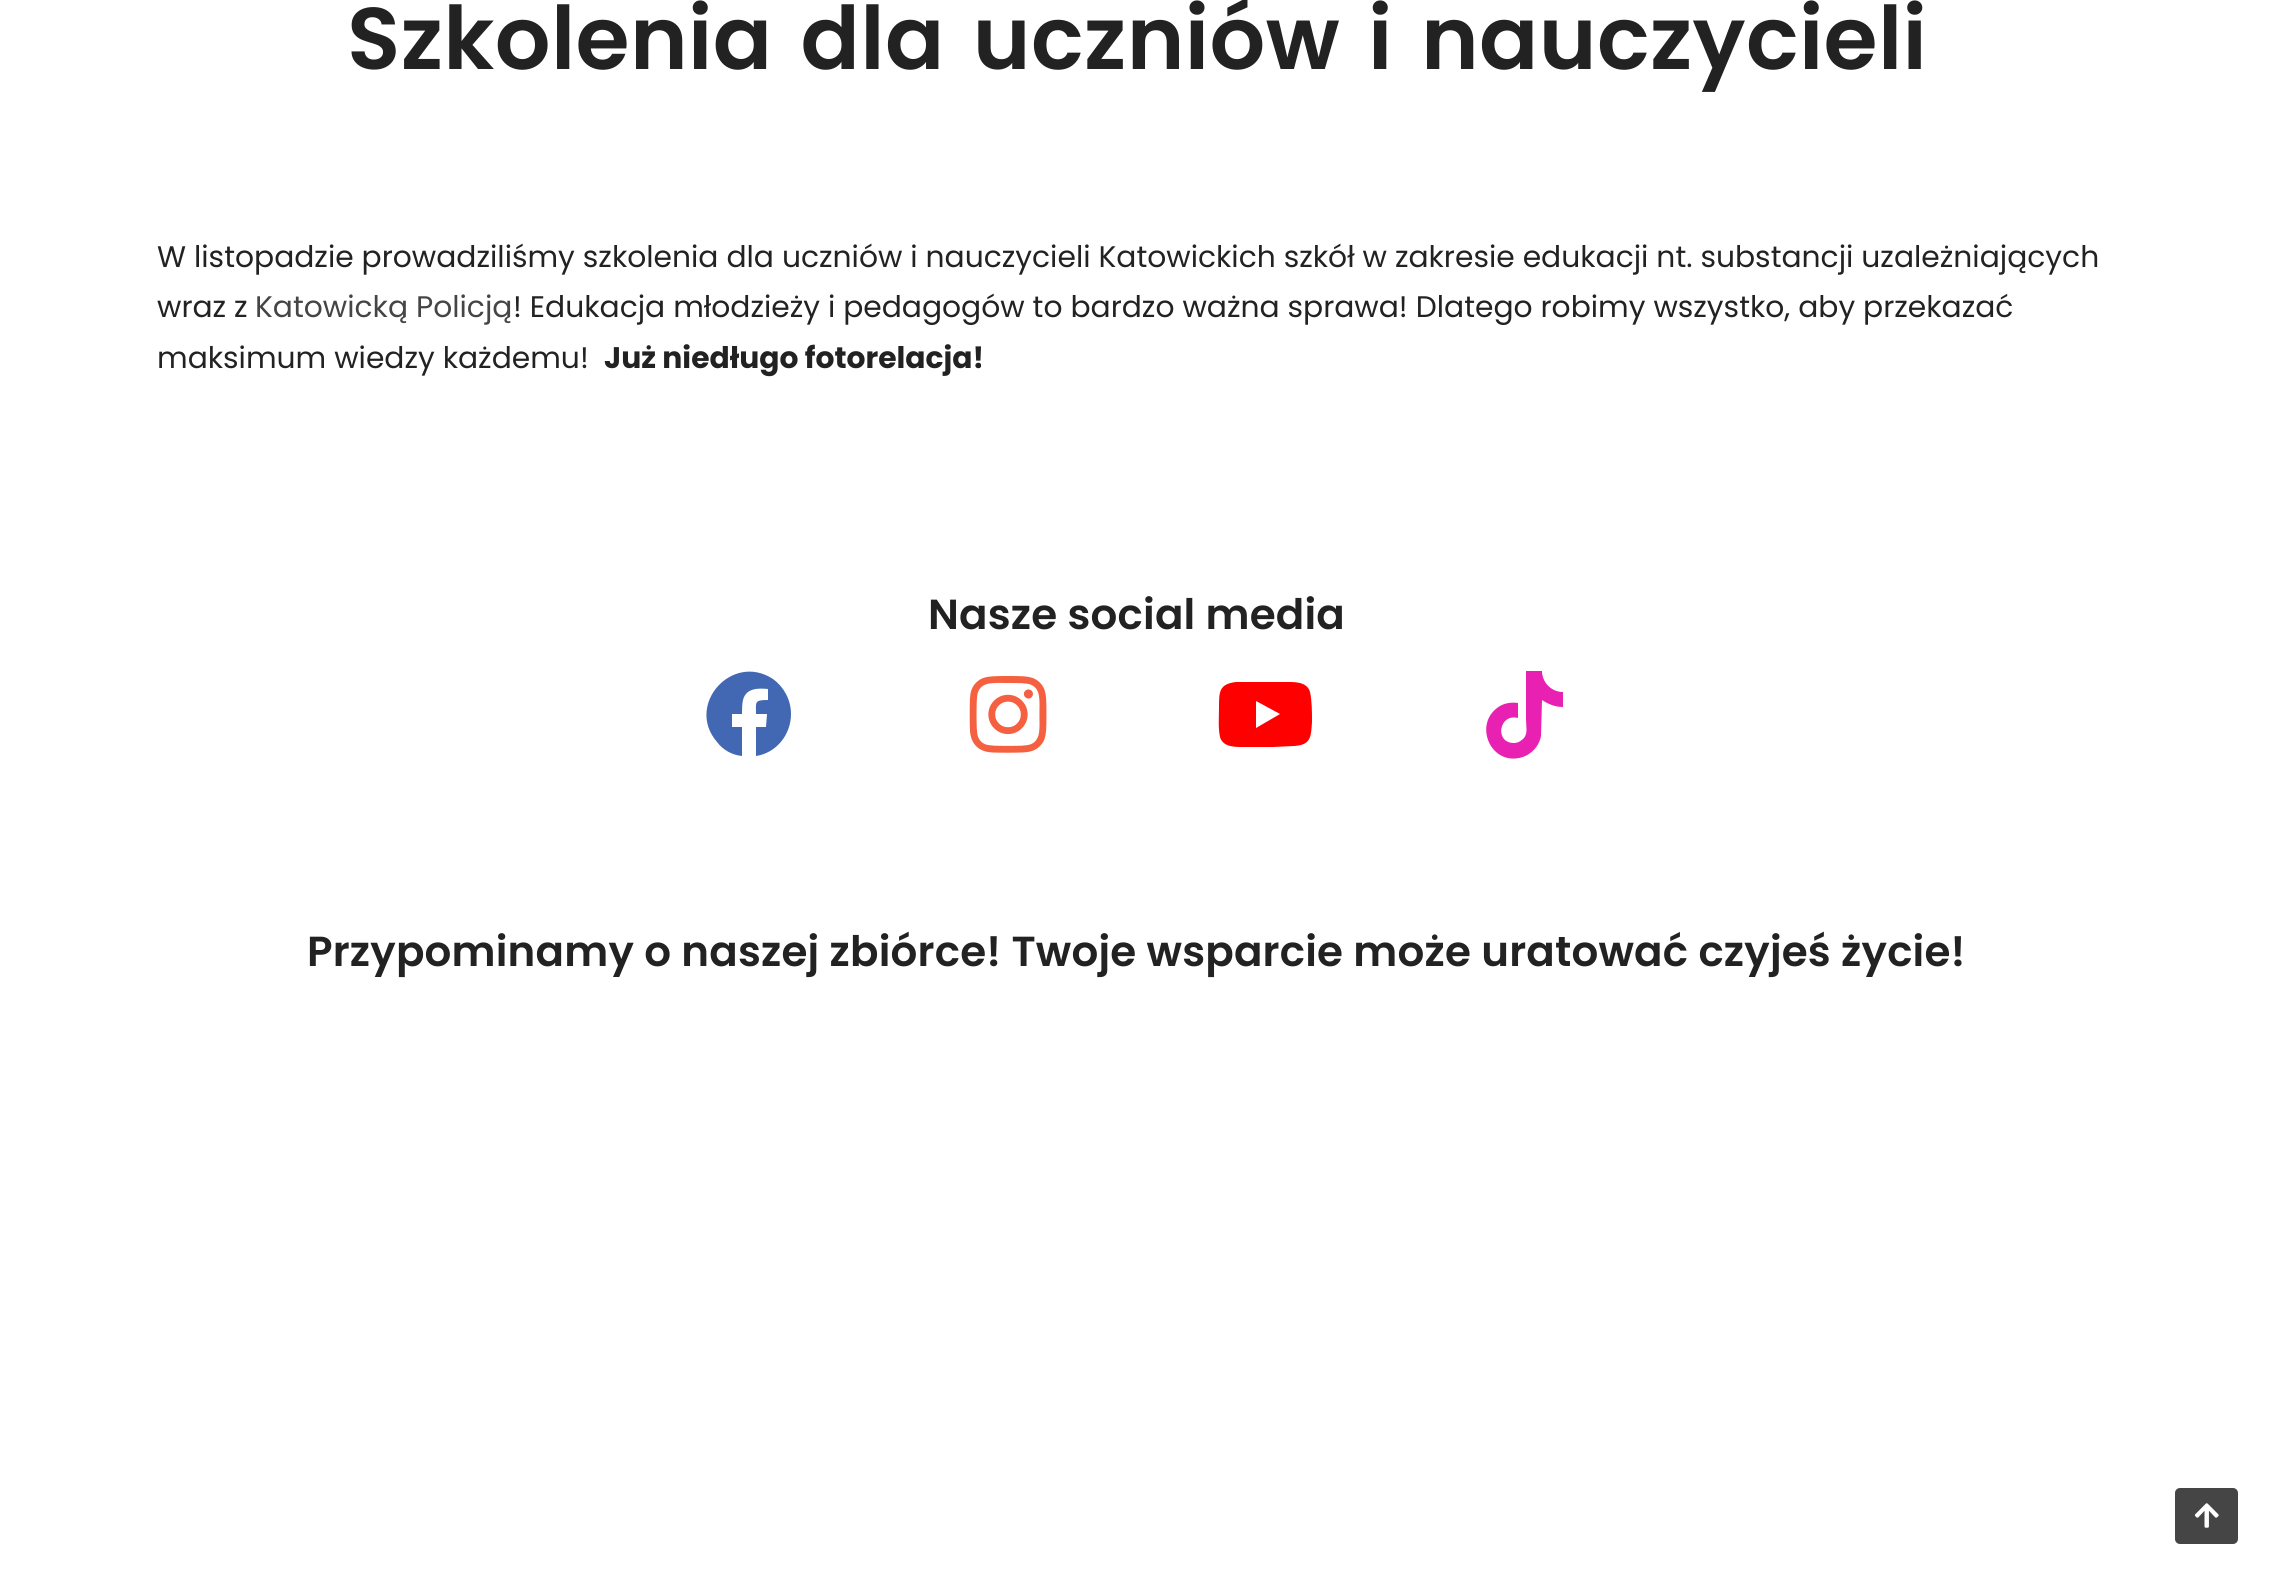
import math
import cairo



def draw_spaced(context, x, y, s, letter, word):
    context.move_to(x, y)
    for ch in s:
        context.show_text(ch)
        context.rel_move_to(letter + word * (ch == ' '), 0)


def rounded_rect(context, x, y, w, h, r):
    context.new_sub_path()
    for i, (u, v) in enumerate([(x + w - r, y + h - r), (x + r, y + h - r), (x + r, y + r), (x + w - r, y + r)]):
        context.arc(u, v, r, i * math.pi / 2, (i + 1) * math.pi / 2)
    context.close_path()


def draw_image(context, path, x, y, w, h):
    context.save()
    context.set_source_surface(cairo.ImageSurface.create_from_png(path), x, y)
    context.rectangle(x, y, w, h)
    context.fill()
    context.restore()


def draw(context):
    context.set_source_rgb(1, 1, 1)
    context.paint()
    context.set_source_rgb(66 / 255, 103 / 255, 179 / 255)
    context.new_path()
    context.move_to(791, 714)
    context.curve_to(791, 735, 776, 753, 756, 756)
    context.line_to(756, 727)
    context.line_to(766, 727)
    context.line_to(767, 714)
    context.line_to(756, 714)
    context.curve_to(756, 702, 754, 700, 768, 700)
    context.line_to(768, 689)
    context.curve_to(758, 688, 746, 688, 743, 700)
    context.curve_to(742, 704, 742, 710, 742, 714)
    context.line_to(732, 714)
    context.line_to(732, 727)
    context.line_to(742, 727)
    context.line_to(742, 756)
    context.curve_to(732, 755, 723, 750, 717, 742)
    context.curve_to(685, 705, 732, 652, 773, 679)
    context.curve_to(784, 687, 791, 700, 791, 714)
    context.close_path()
    context.fill()
    draw_image(context, "images/1.png", 969, 676, 78, 77)
    context.set_source_rgb(1, 0, 0)
    context.new_path()
    context.move_to(1310, 692)
    context.curve_to(1312, 701, 1312, 712, 1312, 722)
    context.curve_to(1311, 737, 1311, 745, 1294, 746)
    context.line_to(1273, 747)
    context.line_to(1246, 747)
    context.curve_to(1237, 747, 1223, 748, 1220, 737)
    context.curve_to(1218, 728, 1219, 717, 1219, 707)
    context.curve_to(1219, 692, 1219, 684, 1236, 682)
    context.line_to(1257, 682)
    context.line_to(1285, 682)
    context.curve_to(1293, 682, 1307, 681, 1310, 692)
    context.close_path()
    context.move_to(1256, 728)
    context.line_to(1280, 714)
    context.line_to(1256, 701)
    context.close_path()
    context.fill()
    context.set_source_rgb(233 / 255, 33 / 255, 179 / 255)
    context.new_path()
    context.move_to(1563, 707)
    context.curve_to(1555, 707, 1548, 704, 1542, 700)
    context.line_to(1541, 736)
    context.curve_to(1539, 747, 1530, 756, 1519, 758)
    context.curve_to(1489, 764, 1473, 722, 1500, 706)
    context.curve_to(1505, 703, 1512, 702, 1518, 703)
    context.line_to(1518, 718)
    context.curve_to(1499, 713, 1494, 743, 1514, 743)
    context.curve_to(1518, 743, 1521, 741, 1524, 738)
    context.curve_to(1528, 733, 1526, 726, 1526, 720)
    context.line_to(1526, 671)
    context.line_to(1542, 671)
    context.curve_to(1542, 682, 1551, 692, 1563, 692)
    context.close_path()
    context.fill()
    context.set_source_rgb(69 / 255, 69 / 255, 69 / 255)
    rounded_rect(context, 2175, 1488, 63, 56, 5)
    context.fill()
    draw_image(context, "images/2.png", 2194, 1503, 25, 25)
    context.select_font_face("Poppins SemiBold")
    context.set_font_size(87.5)
    context.set_source_rgb(34 / 255, 34 / 255, 34 / 255)
    draw_spaced(context, 347, 69, "Szkolenia dla uczniów i nauczycieli", 0.35, 7)
    context.select_font_face("Poppins")
    context.set_font_size(29.75)
    context.move_to(157, 267)
    context.show_text("W listopadzie prowadziliśmy szkolenia dla uczniów i nauczycieli Katowickich szkół w zakresie edukacji nt. substancji uzależniających")
    context.move_to(157, 317)
    context.show_text("wraz z")
    context.set_source_rgb(69 / 255, 69 / 255, 69 / 255)
    context.move_to(255, 317)
    context.show_text("Katowicką Policją")
    context.set_source_rgb(34 / 255, 34 / 255, 34 / 255)
    context.move_to(513, 317)
    context.show_text("! Edukacja młodzieży i pedagogów to bardzo ważna sprawa! Dlatego robimy wszystko, aby przekazać")
    context.move_to(157, 368)
    context.show_text("maksimum wiedzy każdemu!")
    context.select_font_face("Poppins", cairo.FontSlant.NORMAL, cairo.FontWeight.BOLD)
    context.move_to(604, 368)
    context.show_text("Już niedługo fotorelacja!")
    context.select_font_face("Poppins SemiBold")
    context.set_font_size(42)
    draw_spaced(context, 928, 629, "Nasze social media", 0.18, 0)
    draw_spaced(context, 307, 966, "Przypominamy o naszej zbiórce! Twoje wsparcie może uratować czyjeś życie!", 0.18, 0)


surface = cairo.ImageSurface(cairo.Format.RGB24, 2273, 1595)
context = cairo.Context(surface)
options = cairo.FontOptions()
options.set_hint_metrics(cairo.HintMetrics.OFF)
options.set_hint_style(cairo.HintStyle.NONE)
context.set_font_options(options)
context.set_miter_limit(4)
draw(context)
surface.write_to_png("out.png")
